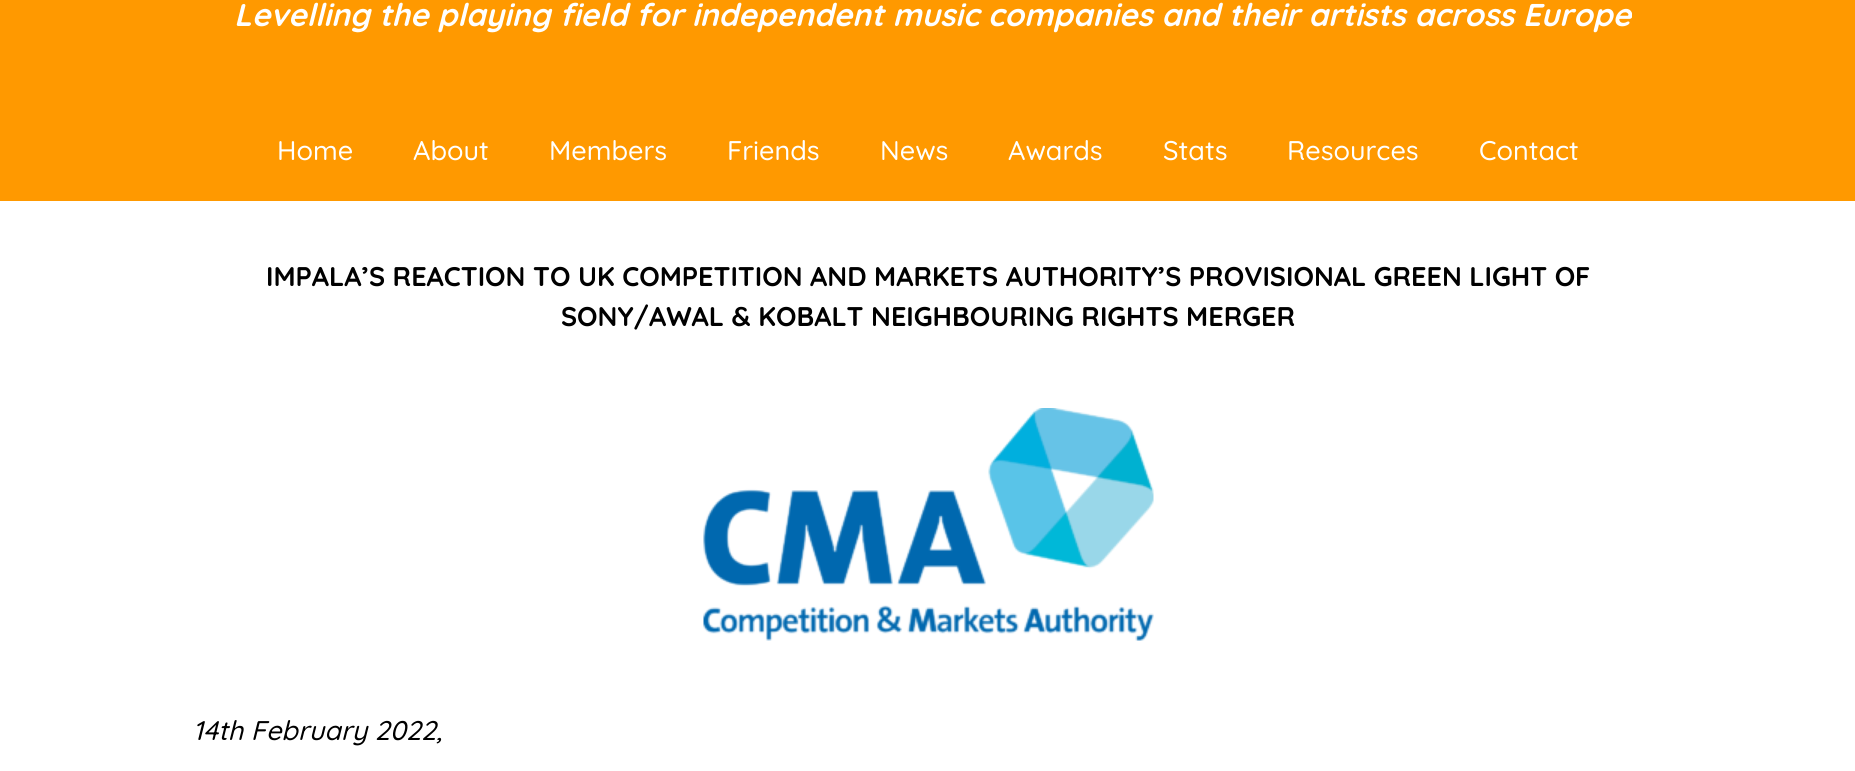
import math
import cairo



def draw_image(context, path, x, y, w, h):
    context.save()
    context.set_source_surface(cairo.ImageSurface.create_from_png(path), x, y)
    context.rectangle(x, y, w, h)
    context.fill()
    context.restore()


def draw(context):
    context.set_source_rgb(1, 1, 1)
    context.paint()
    context.set_source_rgb(1, 153 / 255, 0)
    context.rectangle(0, 0, 1855, 201)
    context.fill()
    draw_image(context, "images/1.png", 703, 408, 451, 233)
    context.select_font_face("Quicksand", cairo.FontSlant.ITALIC, cairo.FontWeight.BOLD)
    context.set_font_size(31.5)
    context.set_source_rgb(1, 1, 1)
    context.move_to(234, 26)
    context.show_text("Levelling the playing field for independent music companies and their artists across Europe")
    context.select_font_face("Quicksand Medium")
    context.set_font_size(27)
    context.move_to(277, 160)
    context.show_text("Home")
    context.move_to(413, 160)
    context.show_text("About")
    context.move_to(549, 160)
    context.show_text("Members")
    context.move_to(727, 160)
    context.show_text("Friends")
    context.move_to(880, 160)
    context.show_text("News")
    context.move_to(1008, 160)
    context.show_text("Awards")
    context.move_to(1163, 160)
    context.show_text("Stats")
    context.move_to(1287, 160)
    context.show_text("Resources")
    context.move_to(1479, 160)
    context.show_text("Contact")
    context.select_font_face("Quicksand", cairo.FontSlant.NORMAL, cairo.FontWeight.BOLD)
    context.set_source_rgb(0, 0, 0)
    context.move_to(266, 286)
    context.show_text("IMPALA’S REACTION TO UK COMPETITION AND MARKETS AUTHORITY’S PROVISIONAL GREEN LIGHT OF")
    context.move_to(561, 326)
    context.show_text("SONY/AWAL & KOBALT NEIGHBOURING RIGHTS MERGER")
    context.select_font_face("Quicksand Medium", cairo.FontSlant.ITALIC)
    context.move_to(193, 740)
    context.show_text("14th February 2022,")


surface = cairo.ImageSurface(cairo.Format.RGB24, 1855, 771)
context = cairo.Context(surface)
options = cairo.FontOptions()
options.set_hint_metrics(cairo.HintMetrics.OFF)
options.set_hint_style(cairo.HintStyle.NONE)
context.set_font_options(options)
context.set_miter_limit(4)
draw(context)
surface.write_to_png("out.png")
